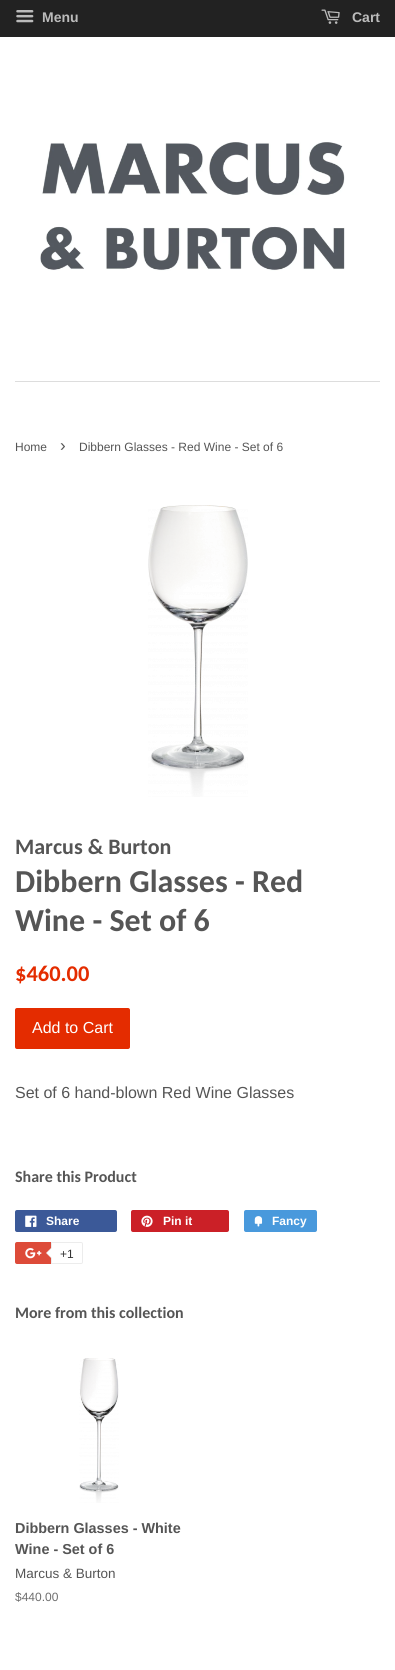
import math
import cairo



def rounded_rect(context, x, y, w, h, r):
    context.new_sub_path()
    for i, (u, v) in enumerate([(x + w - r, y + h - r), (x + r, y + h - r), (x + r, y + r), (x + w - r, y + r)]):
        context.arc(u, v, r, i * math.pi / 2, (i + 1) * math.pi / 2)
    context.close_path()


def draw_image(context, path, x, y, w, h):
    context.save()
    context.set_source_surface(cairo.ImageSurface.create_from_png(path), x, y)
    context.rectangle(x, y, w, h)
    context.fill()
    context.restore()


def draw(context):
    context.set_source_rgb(1, 1, 1)
    context.paint()
    context.set_source_rgb(34 / 255, 34 / 255, 34 / 255)
    context.rectangle(0, 0, 395, 37)
    context.fill()
    draw_image(context, "images/1.png", 16, 10, 18, 13)
    draw_image(context, "images/2.png", 321, 9, 19, 15)
    context.set_source_rgb(221 / 255, 221 / 255, 221 / 255)
    context.rectangle(15, 381, 365, 1)
    context.fill()
    draw_image(context, "images/3.png", 40, 142, 305, 129)
    draw_image(context, "images/4.png", 148, 505, 100, 292)
    context.set_source_rgb(228 / 255, 44 / 255, 0)
    rounded_rect(context, 15, 1008, 115, 41, 2)
    context.fill()
    context.set_source_rgb(59 / 255, 89 / 255, 152 / 255)
    rounded_rect(context, 15, 1210, 102, 22, 2)
    context.fill()
    draw_image(context, "images/5.png", 25, 1215, 12, 12)
    context.set_source_rgb(203 / 255, 32 / 255, 39 / 255)
    rounded_rect(context, 131, 1210, 98, 22, 2)
    context.fill()
    draw_image(context, "images/6.png", 141, 1215, 12, 12)
    context.set_source_rgb(73 / 255, 153 / 255, 220 / 255)
    rounded_rect(context, 244, 1210, 73, 22, 2)
    context.fill()
    draw_image(context, "images/7.png", 254, 1216, 9, 11)
    context.set_source_rgb(221 / 255, 75 / 255, 57 / 255)
    rounded_rect(context, 15, 1242, 66, 22, 2)
    context.fill()
    draw_image(context, "images/8.png", 25, 1248, 17, 11)
    context.set_source_rgb(1, 1, 1)
    context.new_path()
    context.move_to(51.5, 1242.5)
    context.line_to(81, 1242.5)
    context.curve_to(82, 1242.5, 82.5, 1243, 82.5, 1244)
    context.line_to(82.5, 1262)
    context.curve_to(82.5, 1263, 82, 1263.5, 81, 1263.5)
    context.line_to(51.5, 1263.5)
    context.close_path()
    context.fill_preserve()
    context.set_source_rgb(236 / 255, 236 / 255, 236 / 255)
    context.set_line_width(1)
    context.stroke()
    context.new_path()
    context.move_to(52, 1247)
    context.line_to(52, 1259)
    context.line_to(46, 1253)
    context.close_path()
    context.fill()
    context.set_source_rgb(1, 1, 1)
    context.new_path()
    context.move_to(53, 1247)
    context.line_to(53, 1259)
    context.line_to(47, 1253)
    context.close_path()
    context.fill()
    draw_image(context, "images/9.png", 79, 1358, 40, 145)
    context.select_font_face("Liberation Sans", cairo.FontSlant.NORMAL, cairo.FontWeight.BOLD)
    context.set_font_size(14)
    context.set_source_rgb(187 / 255, 187 / 255, 187 / 255)
    context.move_to(42, 22)
    context.show_text("Menu")
    context.move_to(352, 22)
    context.show_text("Cart")
    context.select_font_face("Liberation Sans")
    context.set_font_size(12)
    context.set_source_rgb(85 / 255, 85 / 255, 85 / 255)
    context.move_to(15, 451)
    context.show_text("Home")
    context.set_font_size(17)
    context.move_to(60, 451)
    context.show_text("›")
    context.set_font_size(12)
    context.move_to(79, 451)
    context.show_text("Dibbern Glasses - Red Wine - Set of 6")
    context.select_font_face("Carlito", cairo.FontSlant.NORMAL, cairo.FontWeight.BOLD)
    context.set_font_size(22)
    context.move_to(15, 854)
    context.show_text("Marcus & Burton")
    context.set_font_size(32)
    context.move_to(15, 892)
    context.show_text("Dibbern Glasses - Red")
    context.move_to(15, 931)
    context.show_text("Wine - Set of 6")
    context.set_font_size(22.5)
    context.set_source_rgb(228 / 255, 44 / 255, 0)
    context.move_to(15, 981)
    context.show_text("$460.00")
    context.select_font_face("Liberation Sans")
    context.set_font_size(16)
    context.set_source_rgb(1, 1, 1)
    context.move_to(32, 1033)
    context.show_text("Add to Cart")
    context.set_source_rgb(85 / 255, 85 / 255, 85 / 255)
    context.move_to(15, 1098)
    context.show_text("Set of 6 hand-blown Red Wine Glasses")
    context.select_font_face("Carlito", cairo.FontSlant.NORMAL, cairo.FontWeight.BOLD)
    context.move_to(15, 1182)
    context.show_text("Share this Product")
    context.select_font_face("Liberation Sans", cairo.FontSlant.NORMAL, cairo.FontWeight.BOLD)
    context.set_font_size(12)
    context.set_source_rgb(1, 1, 1)
    context.move_to(46, 1225)
    context.show_text("Share")
    context.move_to(163, 1225)
    context.show_text("Pin it")
    context.move_to(272, 1225)
    context.show_text("Fancy")
    context.select_font_face("Liberation Sans")
    context.set_source_rgb(51 / 255, 51 / 255, 51 / 255)
    context.move_to(60, 1258)
    context.show_text("+1")
    context.select_font_face("Carlito", cairo.FontSlant.NORMAL, cairo.FontWeight.BOLD)
    context.set_font_size(16)
    context.set_source_rgb(85 / 255, 85 / 255, 85 / 255)
    context.move_to(15, 1318)
    context.show_text("More from this collection")
    context.select_font_face("Liberation Sans", cairo.FontSlant.NORMAL, cairo.FontWeight.BOLD)
    context.set_font_size(14.4)
    context.move_to(15, 1533)
    context.show_text("Dibbern Glasses - White")
    context.move_to(15, 1554)
    context.show_text("Wine - Set of 6")
    context.select_font_face("Liberation Sans")
    context.set_font_size(13.5)
    context.move_to(15, 1578)
    context.show_text("Marcus & Burton")
    context.set_font_size(12)
    context.set_source_rgb(110 / 255, 110 / 255, 110 / 255)
    context.move_to(15, 1601)
    context.show_text("$440.00")


surface = cairo.ImageSurface(cairo.Format.RGB24, 395, 1670)
context = cairo.Context(surface)
options = cairo.FontOptions()
options.set_hint_metrics(cairo.HintMetrics.OFF)
options.set_hint_style(cairo.HintStyle.NONE)
context.set_font_options(options)
context.set_miter_limit(4)
draw(context)
surface.write_to_png("out.png")
